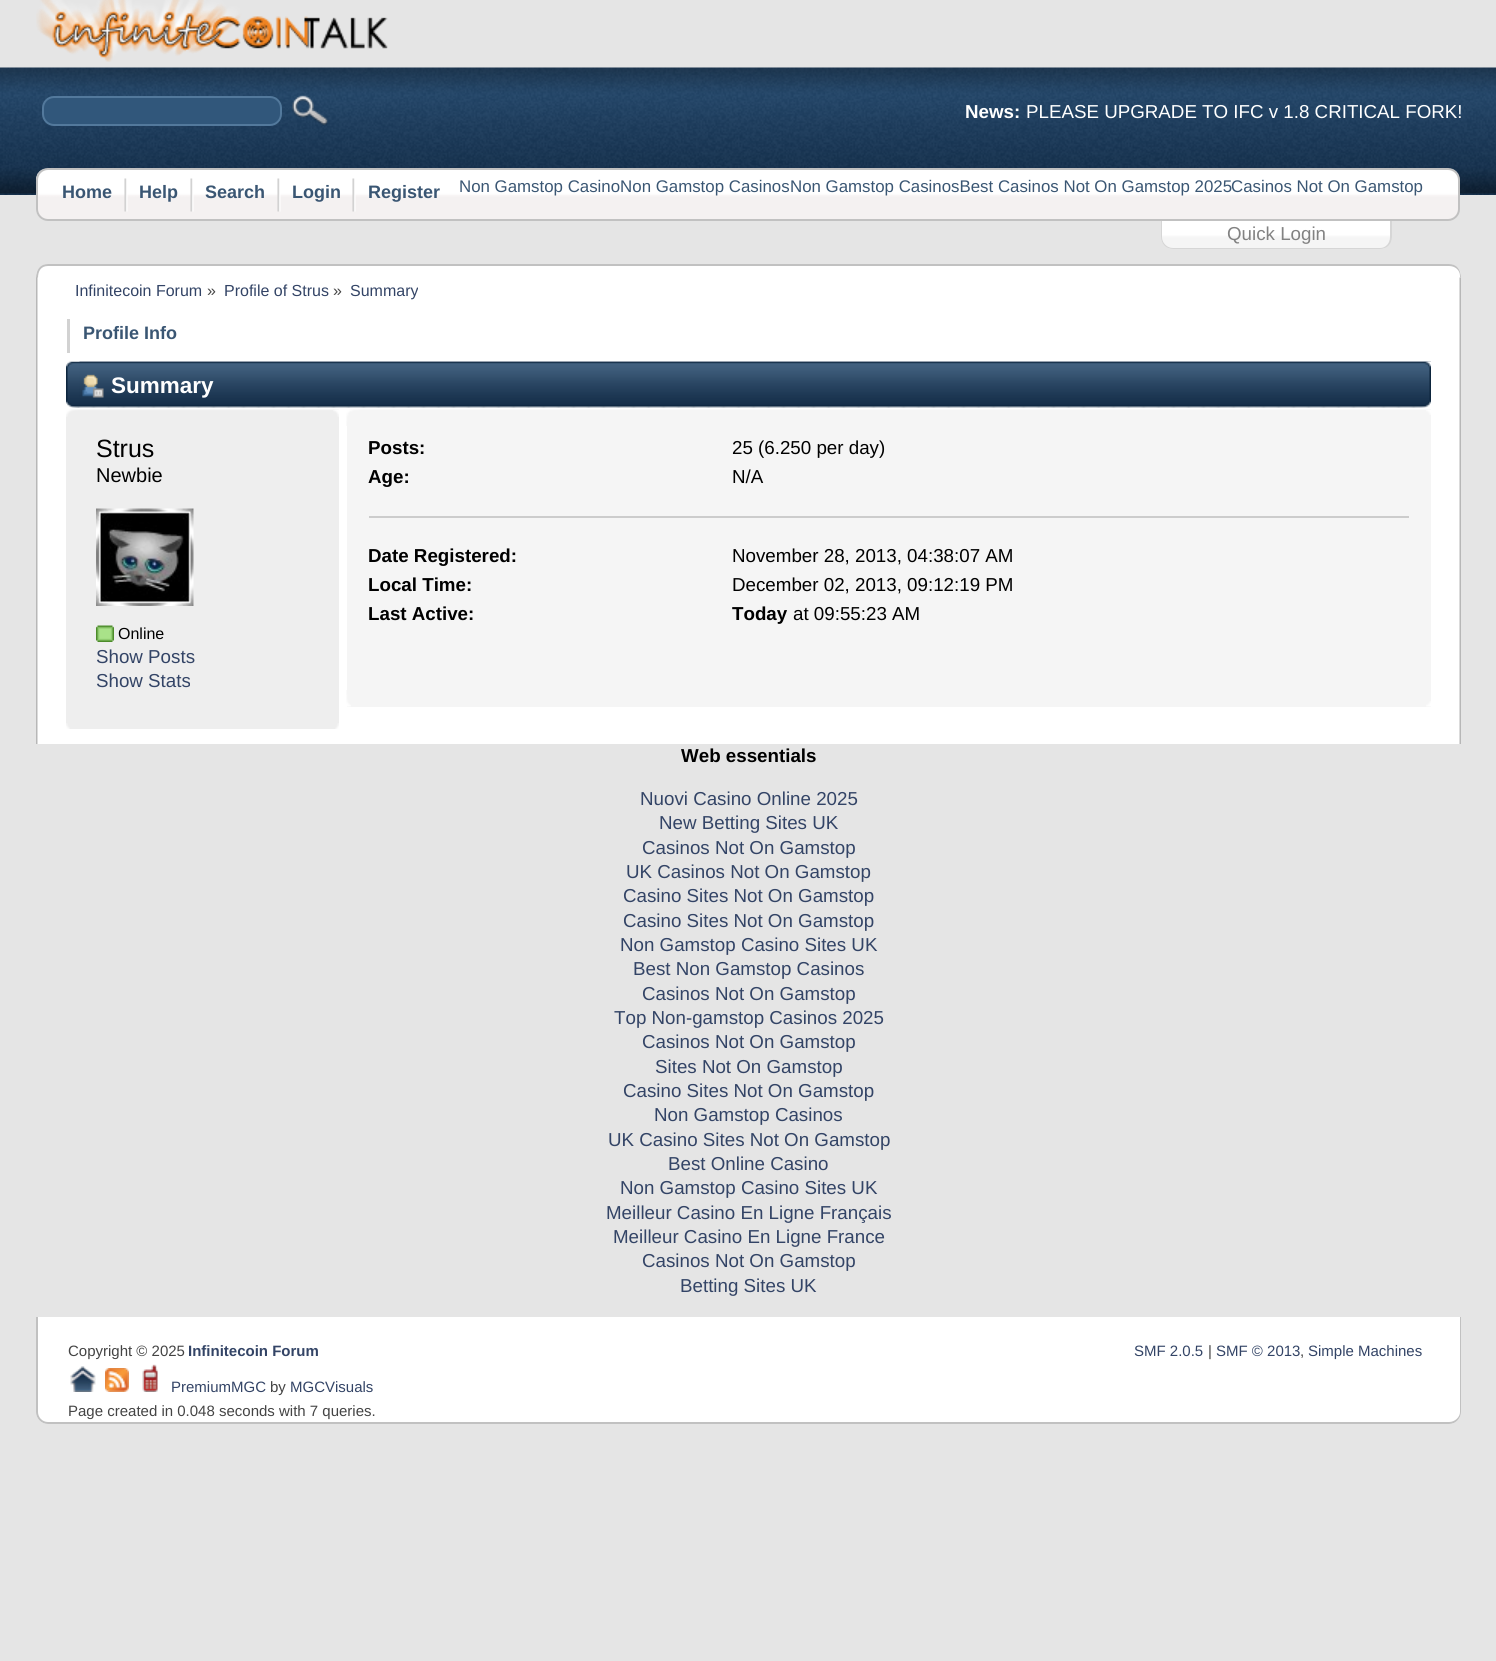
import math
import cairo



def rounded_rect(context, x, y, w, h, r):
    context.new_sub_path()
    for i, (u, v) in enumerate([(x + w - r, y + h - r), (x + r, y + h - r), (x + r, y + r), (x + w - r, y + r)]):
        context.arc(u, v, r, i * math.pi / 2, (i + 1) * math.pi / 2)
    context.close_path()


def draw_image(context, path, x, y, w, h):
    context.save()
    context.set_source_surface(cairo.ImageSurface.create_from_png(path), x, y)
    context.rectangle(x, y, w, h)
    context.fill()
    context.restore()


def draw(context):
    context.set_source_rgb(229 / 255, 229 / 255, 229 / 255)
    context.paint()
    draw_image(context, "images/1.png", 0, 67, 1496, 128)
    draw_image(context, "images/2.png", 36, 0, 352, 62)
    context.set_source_rgb(49 / 255, 87 / 255, 123 / 255)
    rounded_rect(context, 43, 97, 238, 28, 11)
    context.fill_preserve()
    context.set_source_rgb(83 / 255, 121 / 255, 156 / 255)
    context.stroke()
    draw_image(context, "images/3.png", 292, 95, 36, 31)
    draw_image(context, "images/4.png", 36, 169, 1424, 50)
    draw_image(context, "images/6.png", 1161, 221, 231, 28)
    context.set_source_rgb(214 / 255, 214 / 255, 214 / 255)
    context.set_fill_rule(cairo.FillRule.EVEN_ODD)
    context.new_path()
    context.move_to(1161, 220)
    context.line_to(1392, 220)
    context.line_to(1392, 237)
    context.curve_to(1392, 244, 1387, 249, 1380, 249)
    context.line_to(1173, 249)
    context.curve_to(1166, 249, 1161, 244, 1161, 237)
    context.close_path()
    context.move_to(1162, 220)
    context.line_to(1390, 220)
    context.line_to(1390, 237)
    context.curve_to(1390, 243, 1386, 248, 1380, 248)
    context.line_to(1173, 248)
    context.curve_to(1167, 248, 1162, 243, 1162, 237)
    context.close_path()
    context.fill()
    rounded_rect(context, 37, 169, 1422, 51, 11)
    context.set_source_rgb(193 / 255, 193 / 255, 193 / 255)
    context.stroke()
    draw_image(context, "images/5.png", 124, 178, 4, 34)
    draw_image(context, "images/5.png", 190, 178, 4, 34)
    draw_image(context, "images/5.png", 277, 178, 4, 34)
    draw_image(context, "images/5.png", 352, 178, 4, 34)
    context.set_source_rgb(1, 1, 1)
    context.new_path()
    context.move_to(48, 264)
    context.line_to(1449, 264)
    context.curve_to(1455.5, 264, 1461, 269.5, 1461, 276)
    context.line_to(1461, 278)
    context.line_to(36, 278)
    context.line_to(36, 276)
    context.curve_to(36, 269.5, 41.5, 264, 48, 264)
    context.close_path()
    context.fill()
    context.set_source_rgb(193 / 255, 193 / 255, 193 / 255)
    context.new_path()
    context.move_to(48, 264)
    context.line_to(1449, 264)
    context.curve_to(1457, 264, 1461, 270, 1461, 278)
    context.line_to(36, 278)
    context.curve_to(36, 270, 40, 264, 48, 264)
    context.close_path()
    context.move_to(48, 266)
    context.line_to(1449, 266)
    context.curve_to(1455, 266, 1460, 270, 1460, 276)
    context.line_to(1460, 278)
    context.line_to(38, 278)
    context.curve_to(38, 271, 41, 266, 48, 266)
    context.close_path()
    context.fill()
    draw_image(context, "images/7.png", 36, 277, 1425, 467)
    draw_image(context, "images/8.png", 1459, 277, 2, 467)
    context.set_source_rgb(210 / 255, 210 / 255, 210 / 255)
    context.rectangle(67, 319, 3, 34)
    context.fill()
    draw_image(context, "images/9.png", 66, 361, 1365, 47)
    draw_image(context, "images/10.png", 79, 361, 1352, 47)
    draw_image(context, "images/11.png", 82, 374, 22, 24)
    context.set_source_rgb(238 / 255, 238 / 255, 238 / 255)
    context.rectangle(66, 417, 273, 312)
    context.fill()
    draw_image(context, "images/12.png", 66, 409, 273, 8)
    draw_image(context, "images/13.png", 333, 409, 6, 8)
    draw_image(context, "images/14.png", 96, 508, 98, 98)
    draw_image(context, "images/15.png", 96, 625, 18, 17)
    draw_image(context, "images/16.png", 66, 723, 4, 6)
    draw_image(context, "images/17.png", 335, 723, 4, 6)
    context.set_source_rgb(245 / 255, 245 / 255, 245 / 255)
    context.rectangle(347, 426, 1084, 281)
    context.fill()
    draw_image(context, "images/18.png", 346, 409, 1085, 17)
    draw_image(context, "images/19.png", 1426, 410, 5, 5)
    context.set_source_rgb(204 / 255, 204 / 255, 204 / 255)
    context.rectangle(369, 516, 1040, 2)
    context.fill()
    draw_image(context, "images/20.png", 346, 690, 5, 17)
    draw_image(context, "images/21.png", 1426, 701, 5, 6)
    context.set_source_rgb(1, 1, 1)
    context.new_path()
    context.move_to(36, 1317)
    context.line_to(1461, 1317)
    context.line_to(1461, 1412)
    context.curve_to(1461, 1418.5, 1455.5, 1424, 1449, 1424)
    context.line_to(48, 1424)
    context.curve_to(41.5, 1424, 36, 1418.5, 36, 1412)
    context.close_path()
    context.fill()
    context.set_source_rgb(193 / 255, 193 / 255, 193 / 255)
    context.new_path()
    context.move_to(36, 1317)
    context.line_to(1461, 1317)
    context.line_to(1461, 1412)
    context.curve_to(1461, 1418, 1456, 1424, 1449, 1424)
    context.line_to(48, 1424)
    context.curve_to(41, 1424, 36, 1418, 36, 1412)
    context.close_path()
    context.move_to(38, 1317)
    context.line_to(1460, 1317)
    context.line_to(1460, 1412)
    context.curve_to(1460, 1417, 1455, 1422, 1449, 1422)
    context.line_to(48, 1422)
    context.curve_to(42, 1422, 38, 1417, 38, 1412)
    context.close_path()
    context.fill()
    draw_image(context, "images/22.png", 70, 1366, 26, 26)
    draw_image(context, "images/23.png", 105, 1368, 24, 24)
    draw_image(context, "images/24.png", 142, 1364, 16, 28)
    context.select_font_face("Liberation Sans", cairo.FontSlant.NORMAL, cairo.FontWeight.BOLD)
    context.set_font_size(18.75)
    context.set_source_rgb(1, 1, 1)
    context.move_to(965, 118)
    context.show_text("News:")
    context.select_font_face("Liberation Sans")
    context.move_to(1026, 118)
    context.show_text("PLEASE UPGRADE TO IFC v 1.8 CRITICAL FORK!")
    context.select_font_face("Liberation Sans", cairo.FontSlant.NORMAL, cairo.FontWeight.BOLD)
    context.set_font_size(18)
    context.set_source_rgb(58 / 255, 86 / 255, 115 / 255)
    context.move_to(62, 198)
    context.show_text("Home")
    context.move_to(139, 198)
    context.show_text("Help")
    context.move_to(205, 198)
    context.show_text("Search")
    context.move_to(292, 198)
    context.show_text("Login")
    context.move_to(368, 198)
    context.show_text("Register")
    context.select_font_face("Liberation Sans")
    context.set_font_size(16.85)
    context.move_to(459, 192)
    context.show_text("Non Gamstop CasinoNon Gamstop Casinos")
    context.move_to(790, 192)
    context.show_text("Non Gamstop CasinosBest Casinos Not On Gamstop 2025")
    context.move_to(1231, 192)
    context.show_text("Casinos Not On Gamstop")
    context.set_font_size(18.75)
    context.set_source_rgb(130 / 255, 130 / 255, 130 / 255)
    context.move_to(1227, 240)
    context.show_text("Quick Login")
    context.set_font_size(16)
    context.set_source_rgb(51 / 255, 68 / 255, 102 / 255)
    context.move_to(75, 296)
    context.show_text("Infinitecoin Forum")
    context.set_source_rgb(68 / 255, 68 / 255, 68 / 255)
    context.move_to(207, 296)
    context.show_text("»")
    context.set_source_rgb(51 / 255, 68 / 255, 102 / 255)
    context.move_to(224, 296)
    context.show_text("Profile of Strus")
    context.set_source_rgb(68 / 255, 68 / 255, 68 / 255)
    context.move_to(333, 296)
    context.show_text("»")
    context.set_source_rgb(51 / 255, 68 / 255, 102 / 255)
    context.move_to(350, 296)
    context.show_text("Summary")
    context.select_font_face("Liberation Sans", cairo.FontSlant.NORMAL, cairo.FontWeight.BOLD)
    context.set_font_size(18)
    context.set_source_rgb(58 / 255, 86 / 255, 115 / 255)
    context.move_to(83, 339)
    context.show_text("Profile Info")
    context.set_font_size(22.5)
    context.set_source_rgb(1, 1, 1)
    context.move_to(111, 393)
    context.show_text("Summary")
    context.select_font_face("Liberation Sans")
    context.set_font_size(25)
    context.set_source_rgb(0, 0, 0)
    context.move_to(96, 457)
    context.show_text("Strus")
    context.set_font_size(20)
    context.move_to(96, 482)
    context.show_text("Newbie")
    context.set_font_size(16)
    context.move_to(118, 639)
    context.show_text("Online")
    context.set_font_size(18.75)
    context.set_source_rgb(51 / 255, 68 / 255, 102 / 255)
    context.move_to(96, 663)
    context.show_text("Show Posts")
    context.move_to(96, 687)
    context.show_text("Show Stats")
    context.select_font_face("Liberation Sans", cairo.FontSlant.NORMAL, cairo.FontWeight.BOLD)
    context.set_source_rgb(0, 0, 0)
    context.move_to(368, 454)
    context.show_text("Posts:")
    context.select_font_face("Liberation Sans")
    context.move_to(732, 454)
    context.show_text("25 (6.250 per day)")
    context.select_font_face("Liberation Sans", cairo.FontSlant.NORMAL, cairo.FontWeight.BOLD)
    context.move_to(368, 483)
    context.show_text("Age:")
    context.select_font_face("Liberation Sans")
    context.move_to(732, 483)
    context.show_text("N/A")
    context.select_font_face("Liberation Sans", cairo.FontSlant.NORMAL, cairo.FontWeight.BOLD)
    context.move_to(368, 562)
    context.show_text("Date Registered:")
    context.select_font_face("Liberation Sans")
    context.move_to(732, 562)
    context.show_text("November 28, 2013, 04:38:07 AM")
    context.select_font_face("Liberation Sans", cairo.FontSlant.NORMAL, cairo.FontWeight.BOLD)
    context.move_to(368, 591)
    context.show_text("Local Time:")
    context.select_font_face("Liberation Sans")
    context.move_to(732, 591)
    context.show_text("December 02, 2013, 09:12:19 PM")
    context.select_font_face("Liberation Sans", cairo.FontSlant.NORMAL, cairo.FontWeight.BOLD)
    context.move_to(368, 620)
    context.show_text("Last Active:")
    context.move_to(732, 620)
    context.show_text("Today")
    context.select_font_face("Liberation Sans")
    context.move_to(793, 620)
    context.show_text("at 09:55:23 AM")
    context.select_font_face("Liberation Sans", cairo.FontSlant.NORMAL, cairo.FontWeight.BOLD)
    context.move_to(681, 762)
    context.show_text("Web essentials")
    context.select_font_face("Liberation Sans")
    context.set_source_rgb(51 / 255, 68 / 255, 102 / 255)
    context.move_to(640, 805)
    context.show_text("Nuovi Casino Online 2025")
    context.move_to(659, 829)
    context.show_text("New Betting Sites UK")
    context.move_to(642, 854)
    context.show_text("Casinos Not On Gamstop")
    context.move_to(626, 878)
    context.show_text("UK Casinos Not On Gamstop")
    context.move_to(623, 902)
    context.show_text("Casino Sites Not On Gamstop")
    context.move_to(623, 927)
    context.show_text("Casino Sites Not On Gamstop")
    context.move_to(620, 951)
    context.show_text("Non Gamstop Casino Sites UK")
    context.move_to(633, 975)
    context.show_text("Best Non Gamstop Casinos")
    context.move_to(642, 1000)
    context.show_text("Casinos Not On Gamstop")
    context.move_to(614, 1024)
    context.show_text("Top Non-gamstop Casinos 2025")
    context.move_to(642, 1048)
    context.show_text("Casinos Not On Gamstop")
    context.move_to(655, 1073)
    context.show_text("Sites Not On Gamstop")
    context.move_to(623, 1097)
    context.show_text("Casino Sites Not On Gamstop")
    context.move_to(654, 1121)
    context.show_text("Non Gamstop Casinos")
    context.move_to(608, 1146)
    context.show_text("UK Casino Sites Not On Gamstop")
    context.move_to(668, 1170)
    context.show_text("Best Online Casino")
    context.move_to(620, 1194)
    context.show_text("Non Gamstop Casino Sites UK")
    context.move_to(606, 1219)
    context.show_text("Meilleur Casino En Ligne Français")
    context.move_to(613, 1243)
    context.show_text("Meilleur Casino En Ligne France")
    context.move_to(642, 1267)
    context.show_text("Casinos Not On Gamstop")
    context.move_to(680, 1292)
    context.show_text("Betting Sites UK")
    context.set_font_size(15)
    context.set_source_rgb(68 / 255, 68 / 255, 68 / 255)
    context.move_to(68, 1356)
    context.show_text("Copyright © 2025")
    context.select_font_face("Liberation Sans", cairo.FontSlant.NORMAL, cairo.FontWeight.BOLD)
    context.set_source_rgb(51 / 255, 68 / 255, 102 / 255)
    context.move_to(188, 1356)
    context.show_text("Infinitecoin Forum")
    context.select_font_face("Liberation Sans")
    context.move_to(171, 1392)
    context.show_text("PremiumMGC")
    context.set_source_rgb(68 / 255, 68 / 255, 68 / 255)
    context.move_to(270, 1392)
    context.show_text("by")
    context.set_source_rgb(51 / 255, 68 / 255, 102 / 255)
    context.move_to(290, 1392)
    context.show_text("MGCVisuals")
    context.set_source_rgb(68 / 255, 68 / 255, 68 / 255)
    context.move_to(68, 1416)
    context.show_text("Page created in 0.048 seconds with 7 queries.")
    context.set_source_rgb(51 / 255, 68 / 255, 102 / 255)
    context.move_to(1134, 1356)
    context.show_text("SMF 2.0.5")
    context.set_source_rgb(68 / 255, 68 / 255, 68 / 255)
    context.move_to(1208, 1356)
    context.show_text("|")
    context.set_source_rgb(51 / 255, 68 / 255, 102 / 255)
    context.move_to(1216, 1356)
    context.show_text("SMF © 2013")
    context.set_source_rgb(68 / 255, 68 / 255, 68 / 255)
    context.move_to(1300, 1356)
    context.show_text(",")
    context.set_source_rgb(51 / 255, 68 / 255, 102 / 255)
    context.move_to(1308, 1356)
    context.show_text("Simple Machines")


surface = cairo.ImageSurface(cairo.Format.RGB24, 1496, 1661)
context = cairo.Context(surface)
options = cairo.FontOptions()
options.set_hint_metrics(cairo.HintMetrics.OFF)
options.set_hint_style(cairo.HintStyle.NONE)
context.set_font_options(options)
context.set_miter_limit(4)
draw(context)
surface.write_to_png("out.png")
